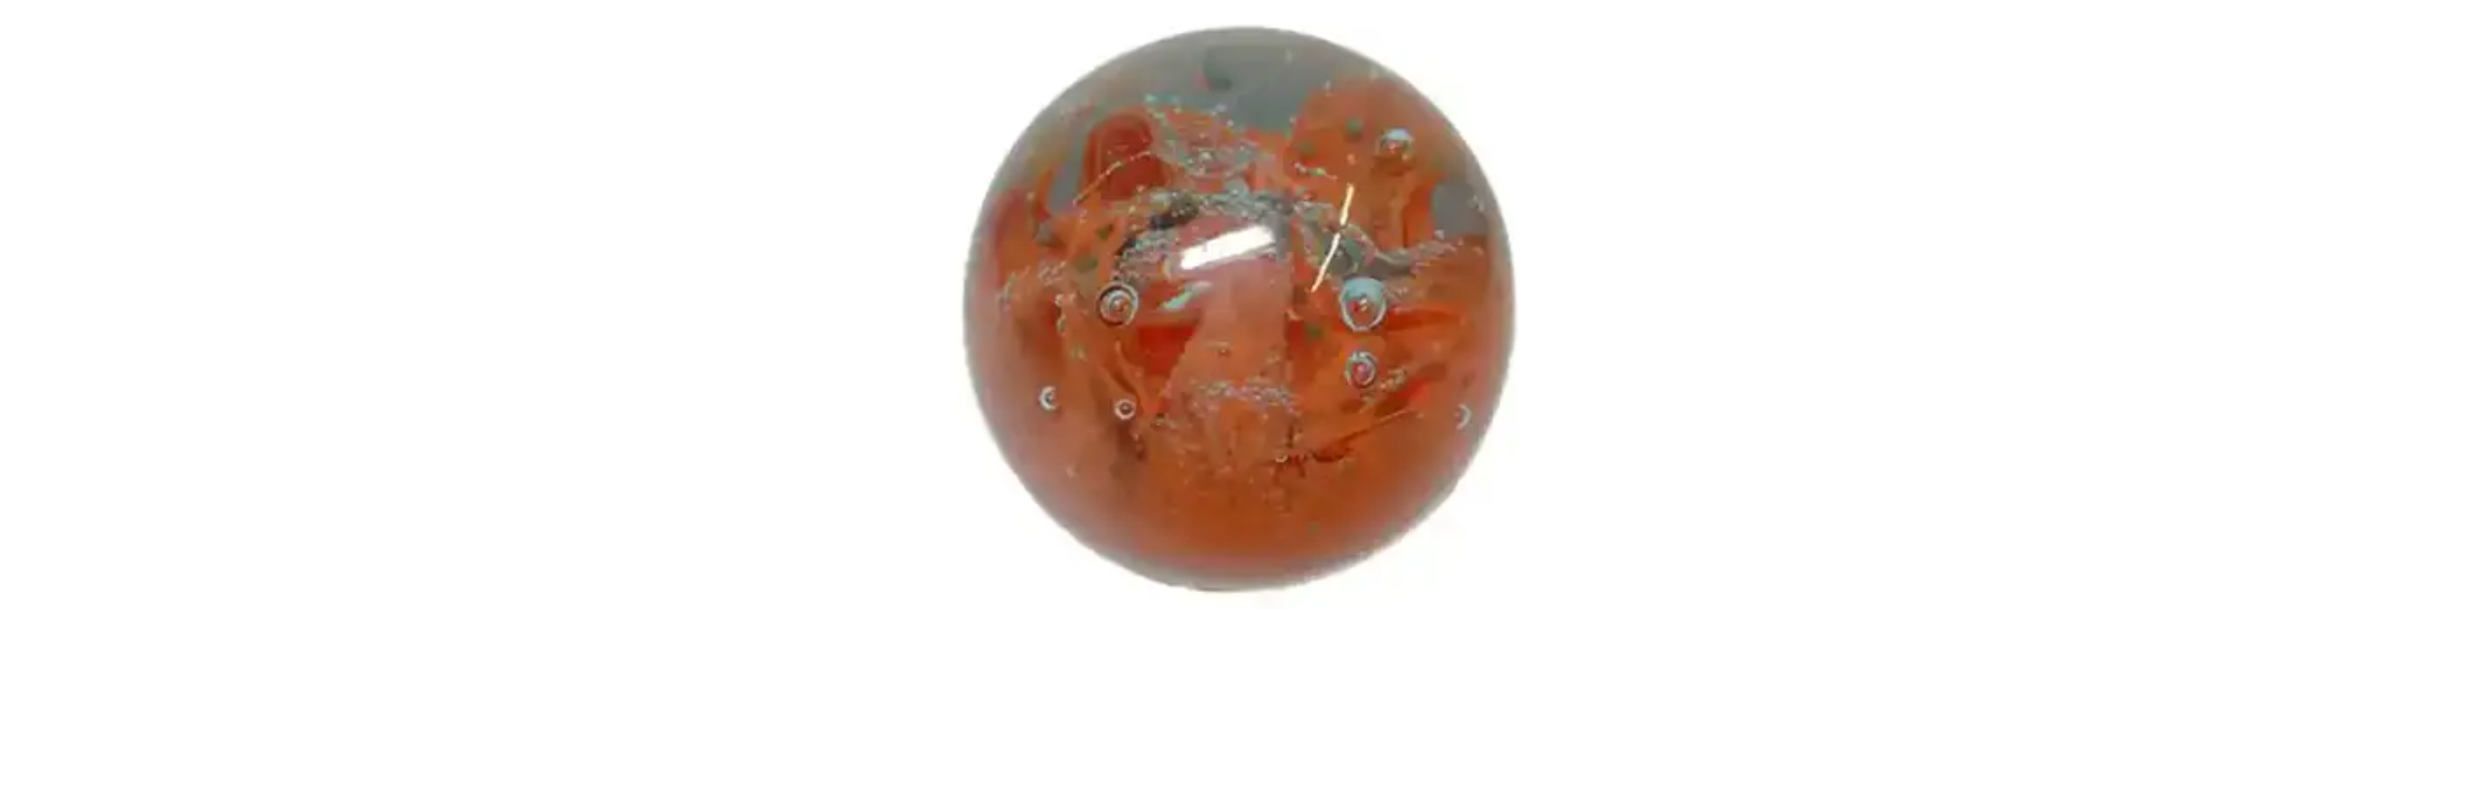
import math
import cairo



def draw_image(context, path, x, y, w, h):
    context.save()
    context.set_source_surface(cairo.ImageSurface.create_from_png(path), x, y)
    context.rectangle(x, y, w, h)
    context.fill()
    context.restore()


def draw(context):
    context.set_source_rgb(1, 1, 1)
    context.paint()
    draw_image(context, "images/1.png", 956, 24, 563, 585)


surface = cairo.ImageSurface(cairo.Format.RGB24, 2475, 789)
context = cairo.Context(surface)
options = cairo.FontOptions()
options.set_hint_metrics(cairo.HintMetrics.OFF)
options.set_hint_style(cairo.HintStyle.NONE)
context.set_font_options(options)
context.set_miter_limit(4)
draw(context)
surface.write_to_png("out.png")
